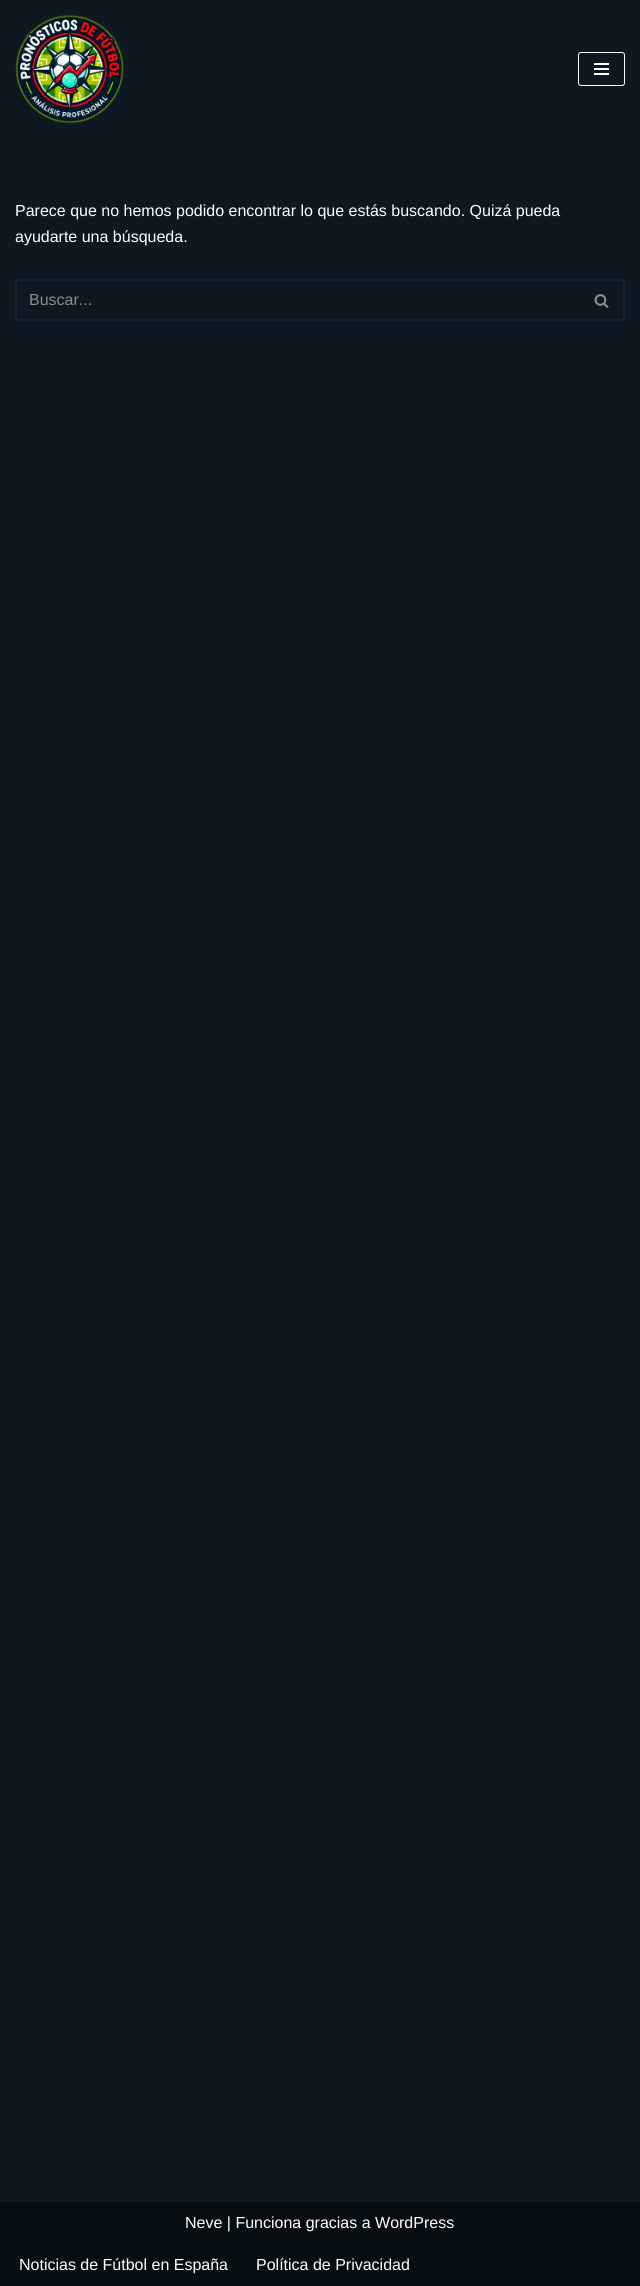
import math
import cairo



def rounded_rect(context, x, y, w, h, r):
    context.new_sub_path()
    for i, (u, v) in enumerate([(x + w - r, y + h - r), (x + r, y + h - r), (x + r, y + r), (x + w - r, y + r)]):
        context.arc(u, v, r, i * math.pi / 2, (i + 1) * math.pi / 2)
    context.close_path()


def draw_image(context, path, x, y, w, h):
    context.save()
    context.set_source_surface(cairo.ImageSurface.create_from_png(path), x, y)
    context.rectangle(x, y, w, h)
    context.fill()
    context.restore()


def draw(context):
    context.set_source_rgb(13 / 255, 24 / 255, 33 / 255)
    context.paint()
    draw_image(context, "images/1.png", 15, 15, 109, 109)
    rounded_rect(context, 578.5, 52.5, 46, 33, 2.5)
    context.set_source_rgb(1, 1, 1)
    context.set_line_width(1)
    context.stroke()
    context.rectangle(594, 63, 15, 2)
    context.fill()
    context.rectangle(594, 68, 15, 2)
    context.fill()
    context.rectangle(594, 73, 15, 2)
    context.fill()
    context.set_source_rgb(20 / 255, 35 / 255, 47 / 255)
    context.rectangle(15, 279, 610, 2)
    context.fill()
    context.rectangle(15, 319, 565, 2)
    context.fill()
    context.rectangle(15, 279, 2, 42)
    context.fill()
    context.rectangle(623, 279, 2, 42)
    context.fill()
    context.rectangle(580, 319, 45, 2)
    context.fill()
    draw_image(context, "images/2.png", 594, 294, 15, 14)
    context.set_source_rgb(7 / 255, 14 / 255, 19 / 255)
    context.rectangle(0, 2202, 640, 84)
    context.fill()
    context.select_font_face("Liberation Sans")
    context.set_font_size(16)
    context.set_source_rgb(1, 1, 1)
    context.move_to(15, 216)
    context.show_text("Parece que no hemos podido encontrar lo que estás buscando. Quizá pueda")
    context.move_to(15, 242)
    context.show_text("ayudarte una búsqueda.")
    context.set_source_rgb(134 / 255, 140 / 255, 144 / 255)
    context.move_to(29, 305)
    context.show_text("Buscar...")
    context.set_source_rgb(1, 1, 1)
    context.move_to(185, 2228)
    context.show_text("Neve | Funciona gracias a WordPress")
    context.move_to(19, 2270)
    context.show_text("Noticias de Fútbol en España")
    context.move_to(256, 2270)
    context.show_text("Política de Privacidad")


surface = cairo.ImageSurface(cairo.Format.RGB24, 640, 2286)
context = cairo.Context(surface)
options = cairo.FontOptions()
options.set_hint_metrics(cairo.HintMetrics.OFF)
options.set_hint_style(cairo.HintStyle.NONE)
context.set_font_options(options)
context.set_miter_limit(4)
draw(context)
surface.write_to_png("out.png")
